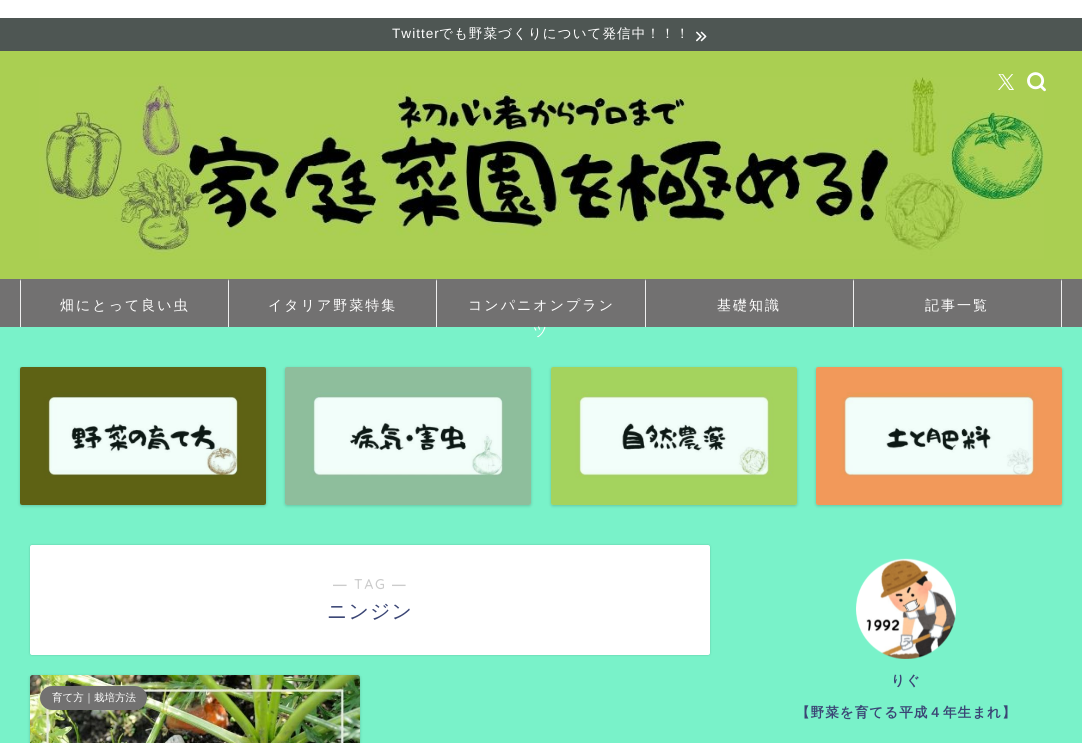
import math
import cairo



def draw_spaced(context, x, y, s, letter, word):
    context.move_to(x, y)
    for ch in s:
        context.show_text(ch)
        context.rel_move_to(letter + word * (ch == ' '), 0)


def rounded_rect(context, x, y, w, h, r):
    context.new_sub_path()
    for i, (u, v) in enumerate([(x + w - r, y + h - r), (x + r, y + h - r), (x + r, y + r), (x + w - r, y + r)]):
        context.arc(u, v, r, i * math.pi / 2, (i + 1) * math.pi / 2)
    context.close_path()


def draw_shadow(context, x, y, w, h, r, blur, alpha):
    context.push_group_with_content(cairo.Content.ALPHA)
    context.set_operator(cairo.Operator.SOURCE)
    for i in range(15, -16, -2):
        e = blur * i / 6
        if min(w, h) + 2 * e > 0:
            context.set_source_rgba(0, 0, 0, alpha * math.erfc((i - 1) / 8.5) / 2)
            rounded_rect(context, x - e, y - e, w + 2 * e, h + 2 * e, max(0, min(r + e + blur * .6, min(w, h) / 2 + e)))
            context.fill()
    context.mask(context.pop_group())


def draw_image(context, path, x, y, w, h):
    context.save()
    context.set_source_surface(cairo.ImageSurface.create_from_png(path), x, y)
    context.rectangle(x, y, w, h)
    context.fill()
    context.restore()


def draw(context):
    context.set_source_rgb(1, 1, 1)
    context.paint()
    context.set_source_rgb(121 / 255, 242 / 255, 201 / 255)
    context.rectangle(0, 327, 1082, 416)
    context.fill()
    context.set_source_rgb(78 / 255, 86 / 255, 83 / 255)
    context.rectangle(0, 18, 1082, 33)
    context.fill()
    draw_image(context, "images/1.png", 696, 31, 11, 11)
    context.set_source_rgb(170 / 255, 207 / 255, 82 / 255)
    context.rectangle(0, 51, 1082, 228)
    context.fill()
    draw_image(context, "images/4.png", 39, 77, 1005, 182)
    draw_image(context, "images/2.png", 998, 74, 16, 16)
    draw_image(context, "images/3.png", 1027, 72, 19, 20)
    context.set_source_rgb(114 / 255, 113 / 255, 113 / 255)
    context.rectangle(0, 279, 1082, 48)
    context.fill()
    context.set_source_rgb(239 / 255, 239 / 255, 239 / 255)
    context.new_path()
    context.move_to(20, 327)
    context.line_to(20, 279)
    context.line_to(21, 281)
    context.line_to(21, 327)
    context.close_path()
    context.fill()
    context.new_path()
    context.move_to(228, 327)
    context.line_to(228, 279)
    context.line_to(229, 281)
    context.line_to(229, 327)
    context.close_path()
    context.fill()
    context.new_path()
    context.move_to(436, 327)
    context.line_to(436, 279)
    context.line_to(437, 281)
    context.line_to(437, 327)
    context.close_path()
    context.fill()
    context.new_path()
    context.move_to(645, 327)
    context.line_to(645, 279)
    context.line_to(646, 281)
    context.line_to(646, 327)
    context.close_path()
    context.fill()
    context.new_path()
    context.move_to(1062, 279)
    context.line_to(1062, 327)
    context.line_to(1061, 327)
    context.line_to(1061, 281)
    context.close_path()
    context.fill()
    context.new_path()
    context.move_to(853, 327)
    context.line_to(853, 279)
    context.line_to(854, 281)
    context.line_to(854, 327)
    context.close_path()
    context.fill()
    context.save()
    context.set_fill_rule(cairo.FillRule.EVEN_ODD)
    context.new_path()
    context.move_to(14, 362)
    context.line_to(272, 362)
    context.line_to(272, 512)
    context.line_to(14, 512)
    context.close_path()
    context.move_to(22, 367)
    context.line_to(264, 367)
    context.curve_to(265, 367, 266, 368, 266, 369)
    context.line_to(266, 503)
    context.curve_to(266, 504, 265, 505, 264, 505)
    context.line_to(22, 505)
    context.curve_to(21, 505, 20, 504, 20, 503)
    context.line_to(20, 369)
    context.curve_to(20, 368, 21, 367, 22, 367)
    context.close_path()
    context.clip()
    context.set_source_rgb(0, 0, 0)
    draw_shadow(context, 20, 368, 246, 138, 2, 1.5, 0.18)
    context.restore()
    draw_image(context, "images/5.png", 20, 367, 246, 138)
    context.save()
    context.set_fill_rule(cairo.FillRule.EVEN_ODD)
    context.new_path()
    context.move_to(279, 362)
    context.line_to(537, 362)
    context.line_to(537, 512)
    context.line_to(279, 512)
    context.close_path()
    context.move_to(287, 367)
    context.line_to(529, 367)
    context.curve_to(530, 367, 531, 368, 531, 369)
    context.line_to(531, 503)
    context.curve_to(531, 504, 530, 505, 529, 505)
    context.line_to(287, 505)
    context.curve_to(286, 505, 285, 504, 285, 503)
    context.line_to(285, 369)
    context.curve_to(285, 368, 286, 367, 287, 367)
    context.close_path()
    context.clip()
    context.set_source_rgb(0, 0, 0)
    draw_shadow(context, 285, 368, 246, 138, 2, 1.5, 0.18)
    context.restore()
    draw_image(context, "images/6.png", 285, 367, 246, 138)
    context.save()
    context.set_fill_rule(cairo.FillRule.EVEN_ODD)
    context.new_path()
    context.move_to(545, 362)
    context.line_to(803, 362)
    context.line_to(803, 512)
    context.line_to(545, 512)
    context.close_path()
    context.move_to(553, 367)
    context.line_to(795, 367)
    context.curve_to(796, 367, 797, 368, 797, 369)
    context.line_to(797, 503)
    context.curve_to(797, 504, 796, 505, 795, 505)
    context.line_to(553, 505)
    context.curve_to(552, 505, 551, 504, 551, 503)
    context.line_to(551, 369)
    context.curve_to(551, 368, 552, 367, 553, 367)
    context.close_path()
    context.clip()
    context.set_source_rgb(0, 0, 0)
    draw_shadow(context, 551, 368, 246, 138, 2, 1.5, 0.18)
    context.restore()
    draw_image(context, "images/7.png", 551, 367, 246, 138)
    context.save()
    context.set_fill_rule(cairo.FillRule.EVEN_ODD)
    context.new_path()
    context.move_to(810, 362)
    context.line_to(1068, 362)
    context.line_to(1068, 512)
    context.line_to(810, 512)
    context.close_path()
    context.move_to(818, 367)
    context.line_to(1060, 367)
    context.curve_to(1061, 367, 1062, 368, 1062, 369)
    context.line_to(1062, 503)
    context.curve_to(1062, 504, 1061, 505, 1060, 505)
    context.line_to(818, 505)
    context.curve_to(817, 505, 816, 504, 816, 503)
    context.line_to(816, 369)
    context.curve_to(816, 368, 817, 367, 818, 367)
    context.close_path()
    context.clip()
    context.set_source_rgb(0, 0, 0)
    draw_shadow(context, 816, 368, 246, 138, 2, 1.5, 0.18)
    context.restore()
    draw_image(context, "images/8.png", 816, 367, 246, 138)
    context.set_source_rgb(0, 0, 0)
    draw_shadow(context, 30, 545, 680, 110, 2, 1, 0.18)
    context.set_source_rgb(1, 1, 1)
    rounded_rect(context, 30, 545, 680, 110, 2)
    context.fill()
    context.set_source_rgb(0, 0, 0)
    draw_shadow(context, 30, 676, 330, 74, 2, 1.5, 0.18)
    draw_image(context, "images/9.png", 30, 675, 330, 68)
    context.set_source_rgb(114 / 255, 113 / 255, 113 / 255)
    rounded_rect(context, 40, 686, 107, 24, 12)
    context.fill()
    draw_image(context, "images/10.png", 856, 558, 100, 101)
    context.select_font_face("Liberation Sans")
    context.set_font_size(13.6)
    context.set_source_rgb(1, 1, 1)
    draw_spaced(context, 392, 38, "Twitter", 1, 0)
    context.select_font_face("WenQuanYi Zen Hei Medium")
    draw_spaced(context, 439, 38, "でも野菜づくりについて発信中！！！", 1, 0)
    context.set_font_size(14)
    draw_spaced(context, 60, 310, "畑にとって良い虫", 2, 0)
    draw_spaced(context, 268, 310, "イタリア野菜特集", 2, 0)
    draw_spaced(context, 468, 310, "コンパニオンプラン", 2, 0)
    draw_spaced(context, 533, 336, "ツ", 2, 0)
    draw_spaced(context, 717, 310, "基礎知識", 2, 0)
    draw_spaced(context, 925, 310, "記事一覧", 2, 0)
    context.select_font_face("Liberation Sans", cairo.FontSlant.NORMAL, cairo.FontWeight.BOLD)
    context.set_font_size(13.6)
    context.set_source_rgb(204 / 255, 204 / 255, 204 / 255)
    draw_spaced(context, 333, 589, "―", 2, 0)
    context.select_font_face("Quicksand", cairo.FontSlant.NORMAL, cairo.FontWeight.BOLD)
    draw_spaced(context, 354, 589, "TAG", 2, 0)
    context.select_font_face("Liberation Sans", cairo.FontSlant.NORMAL, cairo.FontWeight.BOLD)
    draw_spaced(context, 392, 589, "―", 2, 0)
    context.select_font_face("WenQuanYi Zen Hei Medium")
    context.set_font_size(20)
    context.set_source_rgb(59 / 255, 70 / 255, 117 / 255)
    draw_spaced(context, 327, 618, "ニンジン", 1, 0)
    context.set_font_size(10.5)
    context.set_source_rgb(1, 1, 1)
    context.move_to(52, 701)
    context.show_text("育て方｜栽培方法")
    context.select_font_face("WenQuanYi Zen Hei", cairo.FontSlant.NORMAL, cairo.FontWeight.BOLD)
    context.set_font_size(13.6)
    context.set_source_rgb(59 / 255, 70 / 255, 117 / 255)
    draw_spaced(context, 891, 685, "りぐ", 1, 0)
    draw_spaced(context, 796, 717, "【野菜を育てる平成４年生まれ】", 1, 0)


surface = cairo.ImageSurface(cairo.Format.RGB24, 1082, 743)
context = cairo.Context(surface)
options = cairo.FontOptions()
options.set_hint_metrics(cairo.HintMetrics.OFF)
options.set_hint_style(cairo.HintStyle.NONE)
context.set_font_options(options)
context.set_miter_limit(4)
draw(context)
surface.write_to_png("out.png")
